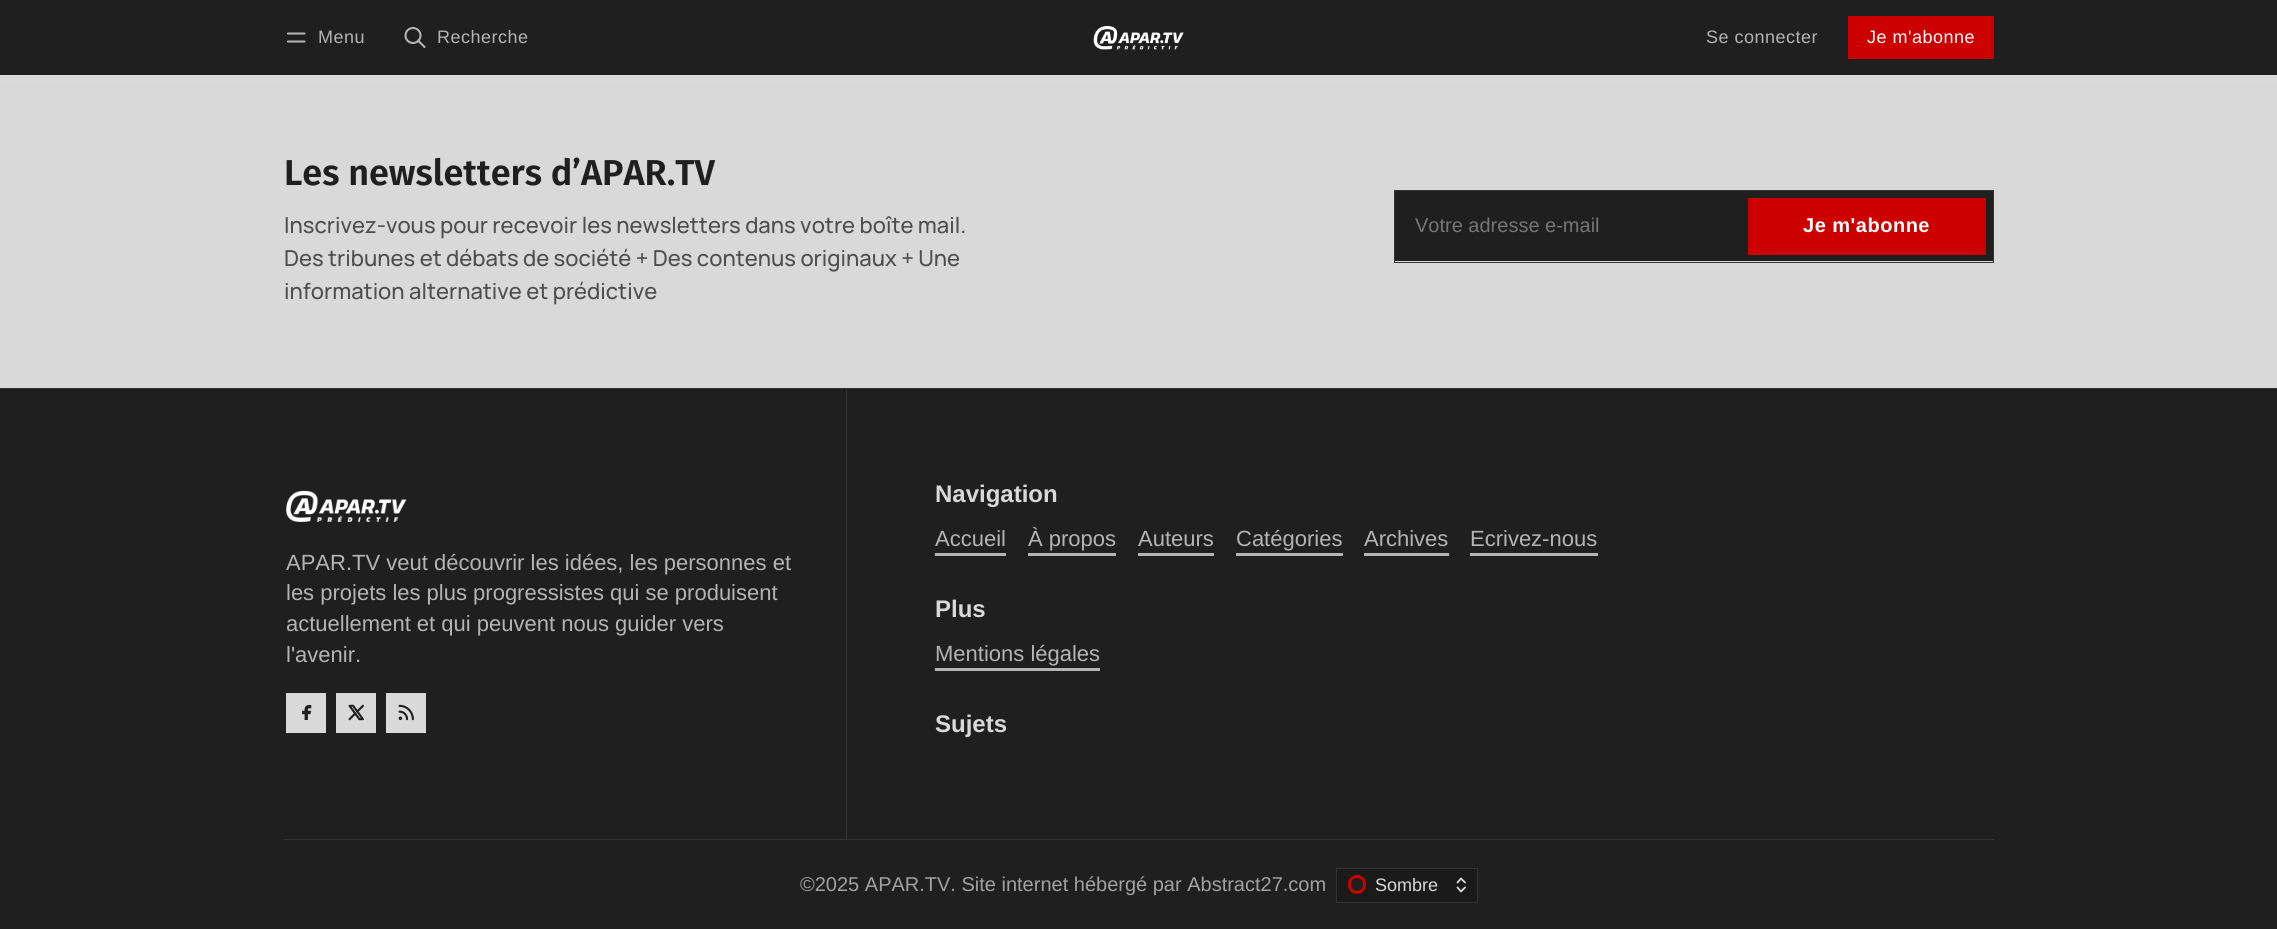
import math
import cairo



def draw_spaced(context, x, y, s, letter, word):
    context.move_to(x, y)
    for ch in s:
        context.show_text(ch)
        context.rel_move_to(letter + word * (ch == ' '), 0)


def rounded_rect(context, x, y, w, h, r):
    context.new_sub_path()
    for i, (u, v) in enumerate([(x + w - r, y + h - r), (x + r, y + h - r), (x + r, y + r), (x + w - r, y + r)]):
        context.arc(u, v, r, i * math.pi / 2, (i + 1) * math.pi / 2)
    context.close_path()


def draw_shadow(context, x, y, w, h, r, blur, alpha):
    context.push_group_with_content(cairo.Content.ALPHA)
    context.set_operator(cairo.Operator.SOURCE)
    for i in range(15, -16, -2):
        e = blur * i / 6
        if min(w, h) + 2 * e > 0:
            context.set_source_rgba(0, 0, 0, alpha * math.erfc((i - 1) / 8.5) / 2)
            rounded_rect(context, x - e, y - e, w + 2 * e, h + 2 * e, max(0, min(r + e + blur * .6, min(w, h) / 2 + e)))
            context.fill()
    context.mask(context.pop_group())


def draw_image(context, path, x, y, w, h):
    context.save()
    context.set_source_surface(cairo.ImageSurface.create_from_png(path), x, y)
    context.rectangle(x, y, w, h)
    context.fill()
    context.restore()


def draw(context):
    context.set_source_rgb(31 / 255, 31 / 255, 31 / 255)
    context.paint()
    context.set_source_rgb(217 / 255, 217 / 255, 217 / 255)
    context.rectangle(0, 75, 2277, 313)
    context.fill()
    context.set_source_rgb(1, 1, 1)
    draw_shadow(context, -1, -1, 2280, 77, 0, 6, 0.1)
    context.set_source_rgb(31 / 255, 31 / 255, 31 / 255)
    context.rectangle(0, 0, 2277, 75)
    context.fill()
    context.new_path()
    context.move_to(288, 33.5)
    context.line_to(304.5, 33.5)
    context.move_to(288, 41.5)
    context.line_to(304.5, 41.5)
    context.set_source_rgb(180 / 255, 180 / 255, 180 / 255)
    context.set_line_width(2.1)
    context.set_line_cap(cairo.LineCap.ROUND)
    context.set_line_join(cairo.LineJoin.ROUND)
    context.stroke()
    context.arc(413, 35.5, 7.5, 0, 2 * math.pi)
    context.set_line_cap(cairo.LineCap.BUTT)
    context.set_line_join(cairo.LineJoin.MITER)
    context.stroke()
    context.new_path()
    context.move_to(424.5, 47)
    context.line_to(418, 40.5)
    context.set_line_cap(cairo.LineCap.ROUND)
    context.set_line_join(cairo.LineJoin.ROUND)
    context.stroke()
    draw_image(context, "images/1.png", 1093, 25, 91, 25)
    context.set_source_rgb(204 / 255, 0, 0)
    context.rectangle(1848, 16, 146, 43)
    context.fill()
    context.rectangle(1394.5, 190.5, 599, 72)
    context.set_source_rgb(51 / 255, 51 / 255, 51 / 255)
    context.set_line_width(1)
    context.set_line_cap(cairo.LineCap.BUTT)
    context.set_line_join(cairo.LineJoin.MITER)
    context.stroke()
    context.set_source_rgb(31 / 255, 31 / 255, 31 / 255)
    context.rectangle(1395, 191, 598, 70)
    context.fill()
    context.set_source_rgb(204 / 255, 0, 0)
    context.rectangle(1748, 198, 238, 57)
    context.fill()
    context.set_source_rgb(51 / 255, 51 / 255, 51 / 255)
    context.rectangle(0, 388, 2277, 1)
    context.fill()
    context.rectangle(846, 389, 1, 450)
    context.fill()
    draw_image(context, "images/2.png", 286, 490, 121, 32)
    context.set_source_rgb(217 / 255, 217 / 255, 217 / 255)
    context.rectangle(286, 693, 40, 40)
    context.fill()
    draw_image(context, "images/3.png", 302, 705, 10, 15)
    context.rectangle(336, 693, 40, 40)
    context.fill()
    draw_image(context, "images/4.png", 348, 704, 16, 17)
    context.rectangle(386, 693, 40, 40)
    context.fill()
    draw_image(context, "images/5.png", 398, 704, 16, 17)
    context.set_source_rgb(180 / 255, 180 / 255, 180 / 255)
    context.rectangle(935, 553, 71, 3)
    context.fill()
    context.rectangle(1028, 553, 88, 3)
    context.fill()
    context.rectangle(1138, 553, 76, 3)
    context.fill()
    context.rectangle(1236, 553, 107, 3)
    context.fill()
    context.rectangle(1364, 553, 85, 3)
    context.fill()
    context.rectangle(1470, 553, 128, 3)
    context.fill()
    context.rectangle(935, 668, 165, 3)
    context.fill()
    context.set_source_rgb(51 / 255, 51 / 255, 51 / 255)
    context.rectangle(284, 839, 1710, 1)
    context.fill()
    context.set_source_rgb(26 / 255, 26 / 255, 26 / 255)
    context.rectangle(1336.5, 868.5, 141, 34)
    context.fill_preserve()
    context.set_source_rgb(51 / 255, 51 / 255, 51 / 255)
    context.stroke()
    context.set_source_rgb(31 / 255, 31 / 255, 31 / 255)
    rounded_rect(context, 1349.5, 876.5, 15, 16, 7.5)
    context.fill_preserve()
    context.set_source_rgb(204 / 255, 0, 0)
    context.set_line_width(3)
    context.stroke()
    context.new_path()
    context.move_to(1465, 882.5)
    context.line_to(1461, 878.5)
    context.line_to(1457.5, 882.5)
    context.move_to(1457.5, 887.5)
    context.line_to(1461, 891.5)
    context.line_to(1465, 887.5)
    context.set_source_rgb(217 / 255, 217 / 255, 217 / 255)
    context.set_line_width(1.8)
    context.set_line_cap(cairo.LineCap.ROUND)
    context.set_line_join(cairo.LineJoin.ROUND)
    context.stroke()
    context.select_font_face("Liberation Sans")
    context.set_font_size(18)
    context.set_source_rgb(180 / 255, 180 / 255, 180 / 255)
    draw_spaced(context, 318, 43, "Menu", 0.5, 0)
    draw_spaced(context, 437, 43, "Recherche", 0.5, 0)
    draw_spaced(context, 1706, 43, "Se connecter", 0.5, 0)
    context.set_source_rgb(1, 1, 1)
    draw_spaced(context, 1867, 43, "Je m'abonne", 0.5, 0)
    context.select_font_face("Fira Sans SemiBold")
    context.set_font_size(36)
    context.set_source_rgb(31 / 255, 31 / 255, 31 / 255)
    context.move_to(284, 185)
    context.show_text("Les newsletters d’APAR.TV")
    context.select_font_face("Manrope ExtraLight")
    context.set_font_size(22)
    context.set_source_rgb(78 / 255, 78 / 255, 78 / 255)
    context.move_to(284, 233)
    context.show_text("Inscrivez-vous pour recevoir les newsletters dans votre boîte mail.")
    context.move_to(284, 266)
    context.show_text("Des tribunes et débats de société + Des contenus originaux + Une")
    context.move_to(284, 299)
    context.show_text("information alternative et prédictive")
    context.select_font_face("Liberation Sans")
    context.set_font_size(20)
    context.set_source_rgb(117 / 255, 117 / 255, 117 / 255)
    context.move_to(1415, 232)
    context.show_text("Votre adresse e-mail")
    context.select_font_face("Liberation Sans", cairo.FontSlant.NORMAL, cairo.FontWeight.BOLD)
    context.set_source_rgb(1, 1, 1)
    draw_spaced(context, 1803, 232, "Je m'abonne", 0.5, 0)
    context.select_font_face("Liberation Sans")
    context.set_font_size(22)
    context.set_source_rgb(180 / 255, 180 / 255, 180 / 255)
    context.move_to(286, 570)
    context.show_text("APAR.TV veut découvrir les idées, les personnes et")
    context.move_to(286, 600)
    context.show_text("les projets les plus progressistes qui se produisent")
    context.move_to(286, 631)
    context.show_text("actuellement et qui peuvent nous guider vers")
    context.move_to(286, 662)
    context.show_text("l'avenir.")
    context.select_font_face("Liberation Sans", cairo.FontSlant.NORMAL, cairo.FontWeight.BOLD)
    context.set_font_size(24)
    context.set_source_rgb(217 / 255, 217 / 255, 217 / 255)
    context.move_to(935, 502)
    context.show_text("Navigation")
    context.select_font_face("Liberation Sans")
    context.set_font_size(22)
    context.set_source_rgb(180 / 255, 180 / 255, 180 / 255)
    context.move_to(935, 546)
    context.show_text("Accueil")
    context.move_to(1028, 546)
    context.show_text("À propos")
    context.move_to(1138, 546)
    context.show_text("Auteurs")
    context.move_to(1236, 546)
    context.show_text("Catégories")
    context.move_to(1364, 546)
    context.show_text("Archives")
    context.move_to(1470, 546)
    context.show_text("Ecrivez-nous")
    context.select_font_face("Liberation Sans", cairo.FontSlant.NORMAL, cairo.FontWeight.BOLD)
    context.set_font_size(24)
    context.set_source_rgb(217 / 255, 217 / 255, 217 / 255)
    context.move_to(935, 617)
    context.show_text("Plus")
    context.select_font_face("Liberation Sans")
    context.set_font_size(22)
    context.set_source_rgb(180 / 255, 180 / 255, 180 / 255)
    context.move_to(935, 661)
    context.show_text("Mentions légales")
    context.select_font_face("Liberation Sans", cairo.FontSlant.NORMAL, cairo.FontWeight.BOLD)
    context.set_font_size(24)
    context.set_source_rgb(217 / 255, 217 / 255, 217 / 255)
    context.move_to(935, 732)
    context.show_text("Sujets")
    context.select_font_face("Liberation Sans")
    context.set_font_size(20)
    context.set_source_rgb(161 / 255, 161 / 255, 161 / 255)
    context.move_to(800, 891)
    context.show_text("©2025 APAR.TV. Site internet hébergé par Abstract27.com")
    context.set_font_size(18)
    context.set_source_rgb(217 / 255, 217 / 255, 217 / 255)
    context.move_to(1375, 891)
    context.show_text("Sombre")


surface = cairo.ImageSurface(cairo.Format.RGB24, 2277, 929)
context = cairo.Context(surface)
options = cairo.FontOptions()
options.set_hint_metrics(cairo.HintMetrics.OFF)
options.set_hint_style(cairo.HintStyle.NONE)
context.set_font_options(options)
context.set_miter_limit(4)
draw(context)
surface.write_to_png("out.png")
